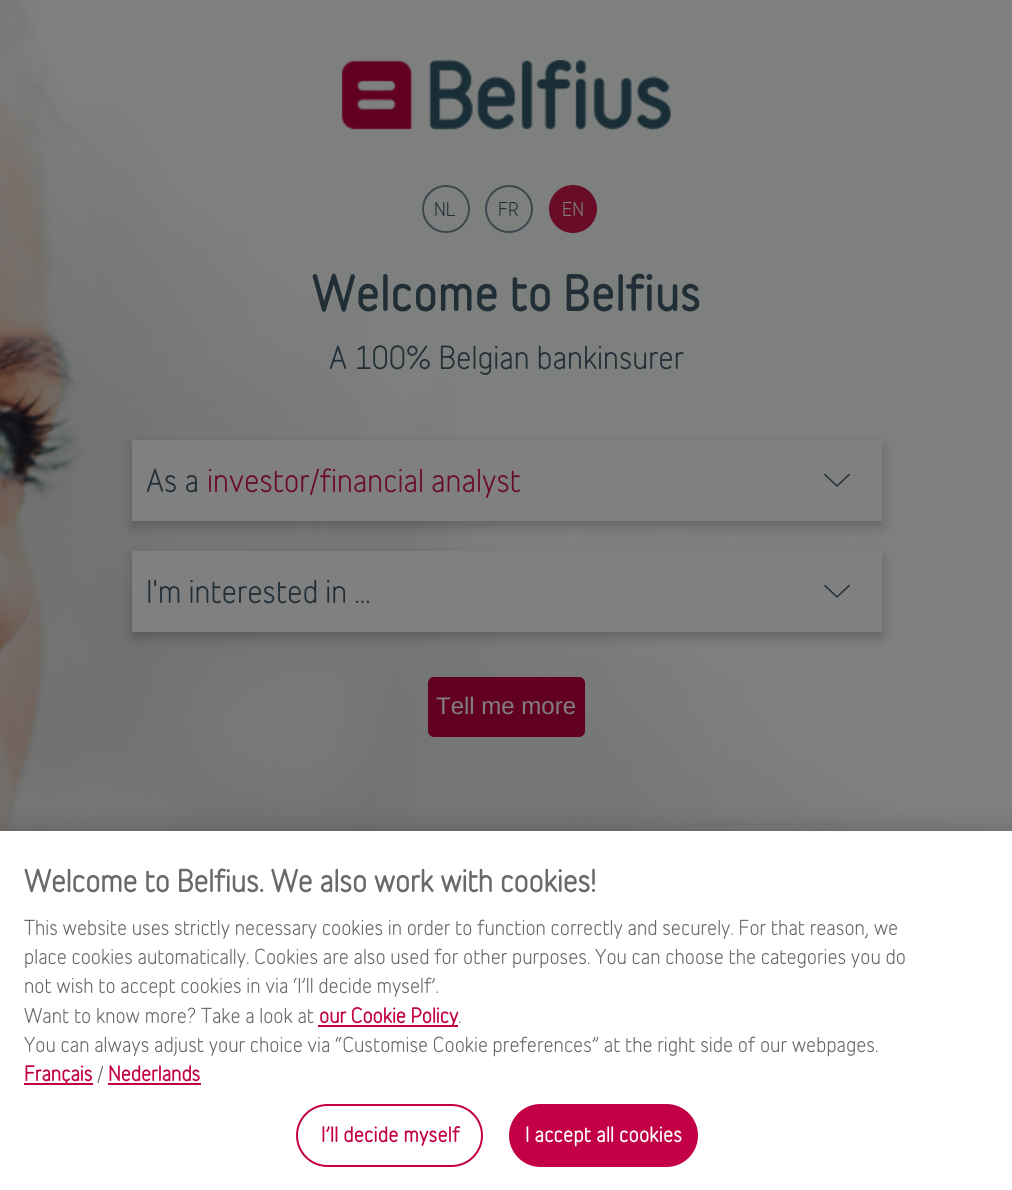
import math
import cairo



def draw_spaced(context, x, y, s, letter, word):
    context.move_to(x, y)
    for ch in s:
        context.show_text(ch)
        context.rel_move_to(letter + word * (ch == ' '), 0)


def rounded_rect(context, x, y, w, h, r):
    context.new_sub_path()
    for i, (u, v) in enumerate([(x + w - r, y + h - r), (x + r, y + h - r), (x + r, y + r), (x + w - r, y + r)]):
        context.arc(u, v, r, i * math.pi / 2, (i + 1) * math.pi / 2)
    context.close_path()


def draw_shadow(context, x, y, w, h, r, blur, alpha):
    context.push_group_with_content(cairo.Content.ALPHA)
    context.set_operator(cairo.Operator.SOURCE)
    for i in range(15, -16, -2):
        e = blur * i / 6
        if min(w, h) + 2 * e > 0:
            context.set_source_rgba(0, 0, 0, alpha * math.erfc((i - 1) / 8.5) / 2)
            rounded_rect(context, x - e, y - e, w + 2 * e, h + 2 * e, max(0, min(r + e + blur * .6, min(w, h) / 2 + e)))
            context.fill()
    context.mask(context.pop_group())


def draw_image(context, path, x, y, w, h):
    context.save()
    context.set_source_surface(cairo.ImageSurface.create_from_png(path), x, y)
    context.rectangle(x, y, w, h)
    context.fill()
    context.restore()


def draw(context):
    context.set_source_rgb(1, 1, 1)
    context.paint()
    draw_image(context, "images/1.png", 0, 0, 1012, 831)
    draw_image(context, "images/2.png", 341, 60, 330, 70)
    context.arc(446, 209, 23, 0, 2 * math.pi)
    context.set_source_rgb(61 / 255, 71 / 255, 78 / 255)
    context.stroke()
    context.arc(509, 209, 23, 0, 2 * math.pi)
    context.stroke()
    context.set_source_rgb(105 / 255, 12 / 255, 39 / 255)
    context.arc(573, 209, 23, 0, 2 * math.pi)
    context.fill_preserve()
    context.stroke()
    context.set_source_rgb(0, 0, 0)
    draw_shadow(context, 132, 446, 750, 81, 0, 6, 0.2)
    context.set_source_rgb(128 / 255, 128 / 255, 128 / 255)
    context.rectangle(132, 440, 750, 81)
    context.fill()
    draw_image(context, "images/3.png", 824, 474, 26, 13)
    context.set_source_rgb(0, 0, 0)
    draw_shadow(context, 132, 557, 750, 81, 0, 6, 0.2)
    context.set_source_rgb(128 / 255, 128 / 255, 128 / 255)
    context.rectangle(132, 551, 750, 81)
    context.fill()
    draw_image(context, "images/3.png", 824, 585, 26, 13)
    context.set_source_rgb(98 / 255, 0, 35 / 255)
    rounded_rect(context, 428, 677, 157, 60, 6)
    context.fill()
    context.set_source_rgb(0, 0, 0)
    draw_shadow(context, 0, 831, 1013, 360, 0, 13.5, 0.2)
    context.set_source_rgb(1, 1, 1)
    context.rectangle(0, 831, 1012, 359)
    context.fill()
    context.set_source_rgb(195 / 255, 0, 69 / 255)
    context.rectangle(318, 1025, 140, 2)
    context.fill()
    context.rectangle(24, 1083, 69, 2)
    context.fill()
    context.rectangle(108, 1083, 93, 2)
    context.fill()
    rounded_rect(context, 297, 1105, 185, 61, 30.5)
    context.stroke()
    rounded_rect(context, 510, 1105, 187, 61, 30.5)
    context.fill_preserve()
    context.stroke()
    context.select_font_face("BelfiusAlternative")
    context.set_font_size(18)
    context.set_source_rgb(33 / 255, 46 / 255, 54 / 255)
    context.move_to(434, 216)
    context.show_text("NL")
    context.move_to(498, 216)
    context.show_text("FR")
    context.set_source_rgb(128 / 255, 128 / 255, 128 / 255)
    context.move_to(562, 216)
    context.show_text("EN")
    context.select_font_face("BelfiusAlternative Black")
    context.set_font_size(45)
    context.set_source_rgb(33 / 255, 46 / 255, 54 / 255)
    context.move_to(312, 311)
    context.show_text("Welcome to Belfius")
    context.select_font_face("BelfiusAlternative")
    context.set_font_size(30)
    context.move_to(329, 369)
    context.show_text("A 100% Belgian bankinsurer")
    context.move_to(146, 492)
    context.show_text("As a")
    context.set_source_rgb(105 / 255, 12 / 255, 39 / 255)
    context.move_to(207, 492)
    context.show_text("investor/financial analyst")
    context.set_source_rgb(33 / 255, 46 / 255, 54 / 255)
    context.move_to(146, 603)
    context.show_text("I'm interested in ...")
    context.select_font_face("Liberation Sans")
    context.set_font_size(24)
    context.set_source_rgb(128 / 255, 128 / 255, 128 / 255)
    context.move_to(436, 714)
    context.show_text("Tell me more")
    context.select_font_face("BelfiusAlternative", cairo.FontSlant.NORMAL, cairo.FontWeight.BOLD)
    context.set_font_size(28.75)
    context.set_source_rgb(105 / 255, 105 / 255, 105 / 255)
    context.move_to(24, 892)
    context.show_text("Welcome to Belfius. We also work with cookies!")
    context.select_font_face("BelfiusAlternative")
    context.set_font_size(19.5)
    context.move_to(24, 935)
    context.show_text("This website uses strictly necessary cookies in order to function correctly and securely. For that reason, we")
    context.move_to(24, 964)
    context.show_text("place cookies automatically. Cookies are also used for other purposes. You can choose the categories you do")
    context.move_to(24, 993)
    context.show_text("not wish to accept cookies in via ‘I’ll decide myself’.")
    context.move_to(24, 1023)
    context.show_text("Want to know more? Take a look at")
    context.select_font_face("BelfiusAlternative", cairo.FontSlant.NORMAL, cairo.FontWeight.BOLD)
    context.set_source_rgb(195 / 255, 0, 69 / 255)
    context.move_to(319, 1023)
    context.show_text("our Cookie Policy")
    context.select_font_face("BelfiusAlternative")
    context.set_source_rgb(105 / 255, 105 / 255, 105 / 255)
    context.move_to(458, 1023)
    context.show_text(".")
    context.move_to(24, 1052)
    context.show_text("You can always adjust your choice via “Customise Cookie preferences” at the right side of our webpages.")
    context.select_font_face("BelfiusAlternative", cairo.FontSlant.NORMAL, cairo.FontWeight.BOLD)
    context.set_source_rgb(195 / 255, 0, 69 / 255)
    context.move_to(24, 1081)
    context.show_text("Français")
    context.select_font_face("BelfiusAlternative")
    context.set_source_rgb(105 / 255, 105 / 255, 105 / 255)
    context.move_to(97, 1081)
    context.show_text("/")
    context.select_font_face("BelfiusAlternative", cairo.FontSlant.NORMAL, cairo.FontWeight.BOLD)
    context.set_source_rgb(195 / 255, 0, 69 / 255)
    context.move_to(108, 1081)
    context.show_text("Nederlands")
    draw_spaced(context, 321, 1142, "I’ll decide myself", 0.25, 0)
    context.set_source_rgb(1, 1, 1)
    draw_spaced(context, 525, 1142, "I accept all cookies", 0.25, 0)


surface = cairo.ImageSurface(cairo.Format.RGB24, 1012, 1190)
context = cairo.Context(surface)
options = cairo.FontOptions()
options.set_hint_metrics(cairo.HintMetrics.OFF)
options.set_hint_style(cairo.HintStyle.NONE)
context.set_font_options(options)
context.set_miter_limit(4)
draw(context)
surface.write_to_png("out.png")
